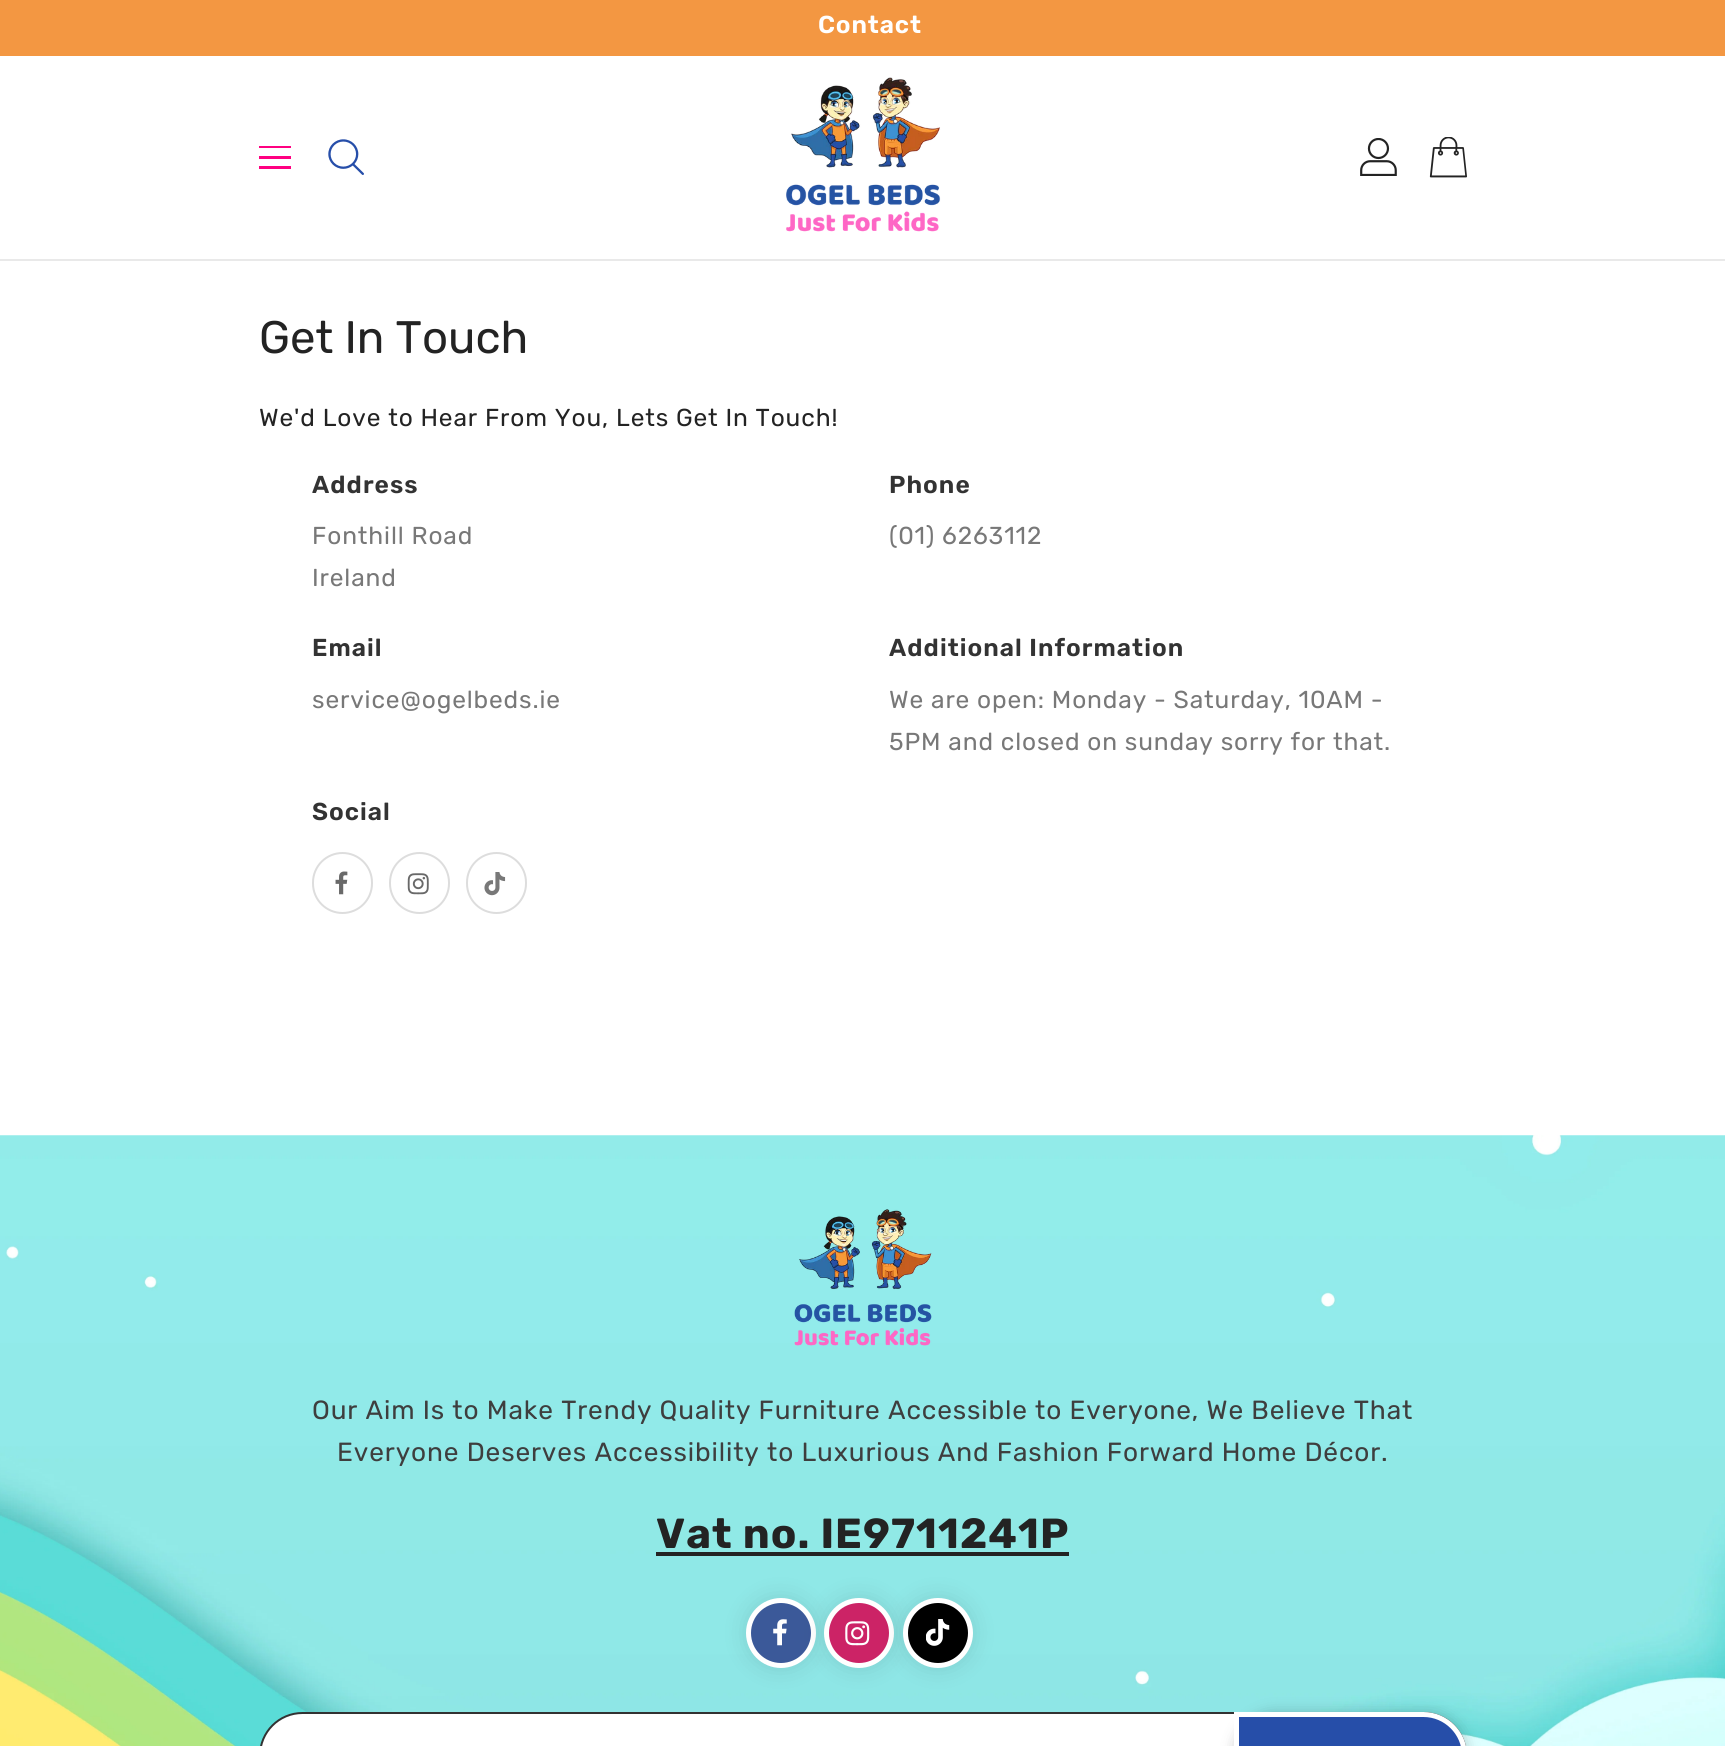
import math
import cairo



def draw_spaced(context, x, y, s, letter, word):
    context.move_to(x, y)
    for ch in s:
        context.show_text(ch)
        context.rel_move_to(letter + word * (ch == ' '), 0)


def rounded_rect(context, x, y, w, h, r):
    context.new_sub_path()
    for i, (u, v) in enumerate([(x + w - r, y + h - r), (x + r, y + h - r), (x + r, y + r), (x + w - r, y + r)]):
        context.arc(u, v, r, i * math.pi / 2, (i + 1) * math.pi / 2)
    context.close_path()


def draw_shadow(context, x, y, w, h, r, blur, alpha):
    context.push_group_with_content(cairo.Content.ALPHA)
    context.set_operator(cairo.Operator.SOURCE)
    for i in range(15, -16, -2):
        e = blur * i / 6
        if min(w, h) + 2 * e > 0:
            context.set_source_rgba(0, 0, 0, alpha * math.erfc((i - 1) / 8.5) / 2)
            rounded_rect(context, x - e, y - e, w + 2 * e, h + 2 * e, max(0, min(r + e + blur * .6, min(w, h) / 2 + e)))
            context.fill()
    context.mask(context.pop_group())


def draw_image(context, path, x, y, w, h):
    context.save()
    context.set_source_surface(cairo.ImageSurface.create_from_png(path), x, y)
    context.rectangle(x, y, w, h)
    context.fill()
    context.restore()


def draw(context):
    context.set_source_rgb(1, 1, 1)
    context.paint()
    context.set_source_rgb(243 / 255, 151 / 255, 66 / 255)
    context.rectangle(0, 0, 1725, 56)
    context.fill()
    context.set_source_rgb(233 / 255, 233 / 255, 233 / 255)
    context.rectangle(0, 259, 1725, 2)
    context.fill()
    context.set_source_rgb(1, 0, 129 / 255)
    context.rectangle(259, 146, 32, 2)
    context.fill()
    context.rectangle(259, 156, 32, 3)
    context.fill()
    context.rectangle(259, 166, 32, 3)
    context.fill()
    draw_image(context, "images/1.png", 328, 139, 36, 36)
    draw_image(context, "images/2.png", 786, 77, 155, 155)
    draw_image(context, "images/3.png", 1360, 138, 37, 38)
    draw_image(context, "images/4.png", 1429, 137, 38, 41)
    rounded_rect(context, 313, 853, 59, 60, 29.5)
    context.set_source_rgb(221 / 255, 221 / 255, 221 / 255)
    context.stroke()
    draw_image(context, "images/5.png", 335, 871, 13, 24)
    rounded_rect(context, 390, 853, 59, 60, 29.5)
    context.stroke()
    draw_image(context, "images/6.png", 407, 873, 22, 22)
    rounded_rect(context, 467, 853, 59, 60, 29.5)
    context.stroke()
    draw_image(context, "images/7.png", 484, 872, 22, 24)
    draw_image(context, "images/8.png", 0, 1135, 1725, 611)
    draw_image(context, "images/9.png", 794, 1209, 138, 137)
    context.set_source_rgb(35 / 255, 35 / 255, 35 / 255)
    context.rectangle(656, 1552, 413, 4)
    context.fill()
    context.set_source_rgb(0, 0, 0)
    draw_shadow(context, 744, 1596, 73, 74, 36.5, 10.5, 0.1)
    context.set_source_rgb(59 / 255, 89 / 255, 153 / 255)
    context.arc(781, 1633, 32.5, 0, 2 * math.pi)
    context.fill_preserve()
    context.set_source_rgb(1, 1, 1)
    context.set_line_width(5)
    context.stroke()
    draw_image(context, "images/10.png", 773, 1619, 14, 27)
    context.set_source_rgb(0, 0, 0)
    draw_shadow(context, 823, 1596, 73, 74, 36.5, 10.5, 0.1)
    context.set_source_rgb(204 / 255, 35 / 255, 102 / 255)
    context.arc(859, 1633, 32.5, 0, 2 * math.pi)
    context.fill_preserve()
    context.set_source_rgb(1, 1, 1)
    context.stroke()
    draw_image(context, "images/11.png", 845, 1621, 25, 25)
    context.set_source_rgb(0, 0, 0)
    draw_shadow(context, 901, 1596, 74, 74, 37, 10.5, 0.1)
    context.set_source_rgb(0, 0, 0)
    context.arc(938, 1633, 32.5, 0, 2 * math.pi)
    context.fill_preserve()
    context.set_source_rgb(1, 1, 1)
    context.stroke()
    draw_image(context, "images/12.png", 926, 1619, 24, 27)
    rounded_rect(context, 260, 1713, 1206, 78, 42.5)
    context.fill_preserve()
    context.set_source_rgb(50 / 255, 50 / 255, 50 / 255)
    context.set_line_width(2)
    context.stroke()
    context.set_source_rgb(0, 0, 0)
    draw_shadow(context, 1234, 1712, 233, 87, 43.5, 7, 0.2)
    context.set_source_rgb(38 / 255, 78 / 255, 169 / 255)
    context.new_path()
    context.move_to(1236.5, 1714.5)
    context.line_to(1423.5, 1714.5)
    context.curve_to(1446, 1714.5, 1464.5, 1733, 1464.5, 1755.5)
    context.line_to(1464.5, 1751.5)
    context.curve_to(1464.5, 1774, 1446, 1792.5, 1423.5, 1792.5)
    context.line_to(1236.5, 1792.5)
    context.close_path()
    context.fill_preserve()
    context.set_source_rgb(1, 1, 1)
    context.set_line_width(5)
    context.stroke()
    context.select_font_face("Rubik SemiBold")
    context.set_font_size(24.5)
    draw_spaced(context, 818, 33, "Contact", 0.88, 0)
    context.select_font_face("Rubik")
    context.set_font_size(45.5)
    context.set_source_rgb(35 / 255, 35 / 255, 35 / 255)
    context.move_to(259, 353)
    context.show_text("Get In Touch")
    context.set_font_size(24.5)
    draw_spaced(context, 259, 426, "We'd Love to Hear From You, Lets Get In Touch!", 0.88, 0)
    context.select_font_face("Rubik SemiBold")
    context.set_source_rgb(51 / 255, 51 / 255, 51 / 255)
    draw_spaced(context, 312, 493, "Address", 1.05, 0)
    context.select_font_face("Rubik")
    context.set_source_rgb(120 / 255, 120 / 255, 120 / 255)
    draw_spaced(context, 312, 544, "Fonthill Road", 0.88, 0)
    draw_spaced(context, 312, 586, "Ireland", 0.88, 0)
    context.select_font_face("Rubik SemiBold")
    context.set_source_rgb(51 / 255, 51 / 255, 51 / 255)
    draw_spaced(context, 889, 493, "Phone", 1.05, 0)
    context.select_font_face("Rubik")
    context.set_source_rgb(120 / 255, 120 / 255, 120 / 255)
    draw_spaced(context, 889, 544, "(01) 6263112", 0.88, 0)
    context.select_font_face("Rubik SemiBold")
    context.set_source_rgb(51 / 255, 51 / 255, 51 / 255)
    draw_spaced(context, 312, 656, "Email", 1.05, 0)
    context.select_font_face("Rubik")
    context.set_source_rgb(120 / 255, 120 / 255, 120 / 255)
    draw_spaced(context, 312, 708, "service@ogelbeds.ie", 0.88, 0)
    context.select_font_face("Rubik SemiBold")
    context.set_source_rgb(51 / 255, 51 / 255, 51 / 255)
    draw_spaced(context, 889, 656, "Additional Information", 1.05, 0)
    context.select_font_face("Rubik")
    context.set_source_rgb(120 / 255, 120 / 255, 120 / 255)
    draw_spaced(context, 889, 708, "We are open: Monday - Saturday, 10AM -", 0.88, 0)
    draw_spaced(context, 889, 750, "5PM and closed on sunday sorry for that.", 0.88, 0)
    context.select_font_face("Rubik SemiBold")
    context.set_source_rgb(51 / 255, 51 / 255, 51 / 255)
    draw_spaced(context, 312, 820, "Social", 1.05, 0)
    context.select_font_face("Rubik")
    context.set_font_size(26.25)
    context.set_source_rgb(62 / 255, 62 / 255, 62 / 255)
    draw_spaced(context, 312, 1419, "Our Aim Is to Make Trendy Quality Furniture Accessible to Everyone, We Believe That", 0.88, 0)
    draw_spaced(context, 337, 1461, "Everyone Deserves Accessibility to Luxurious And Fashion Forward Home Décor.", 0.88, 0)
    context.select_font_face("Rubik", cairo.FontSlant.NORMAL, cairo.FontWeight.BOLD)
    context.set_font_size(42)
    context.set_source_rgb(35 / 255, 35 / 255, 35 / 255)
    draw_spaced(context, 656, 1548, "Vat no. IE9711241P", 1.05, 0)


surface = cairo.ImageSurface(cairo.Format.RGB24, 1725, 1746)
context = cairo.Context(surface)
options = cairo.FontOptions()
options.set_hint_metrics(cairo.HintMetrics.OFF)
options.set_hint_style(cairo.HintStyle.NONE)
context.set_font_options(options)
context.set_miter_limit(4)
draw(context)
surface.write_to_png("out.png")
